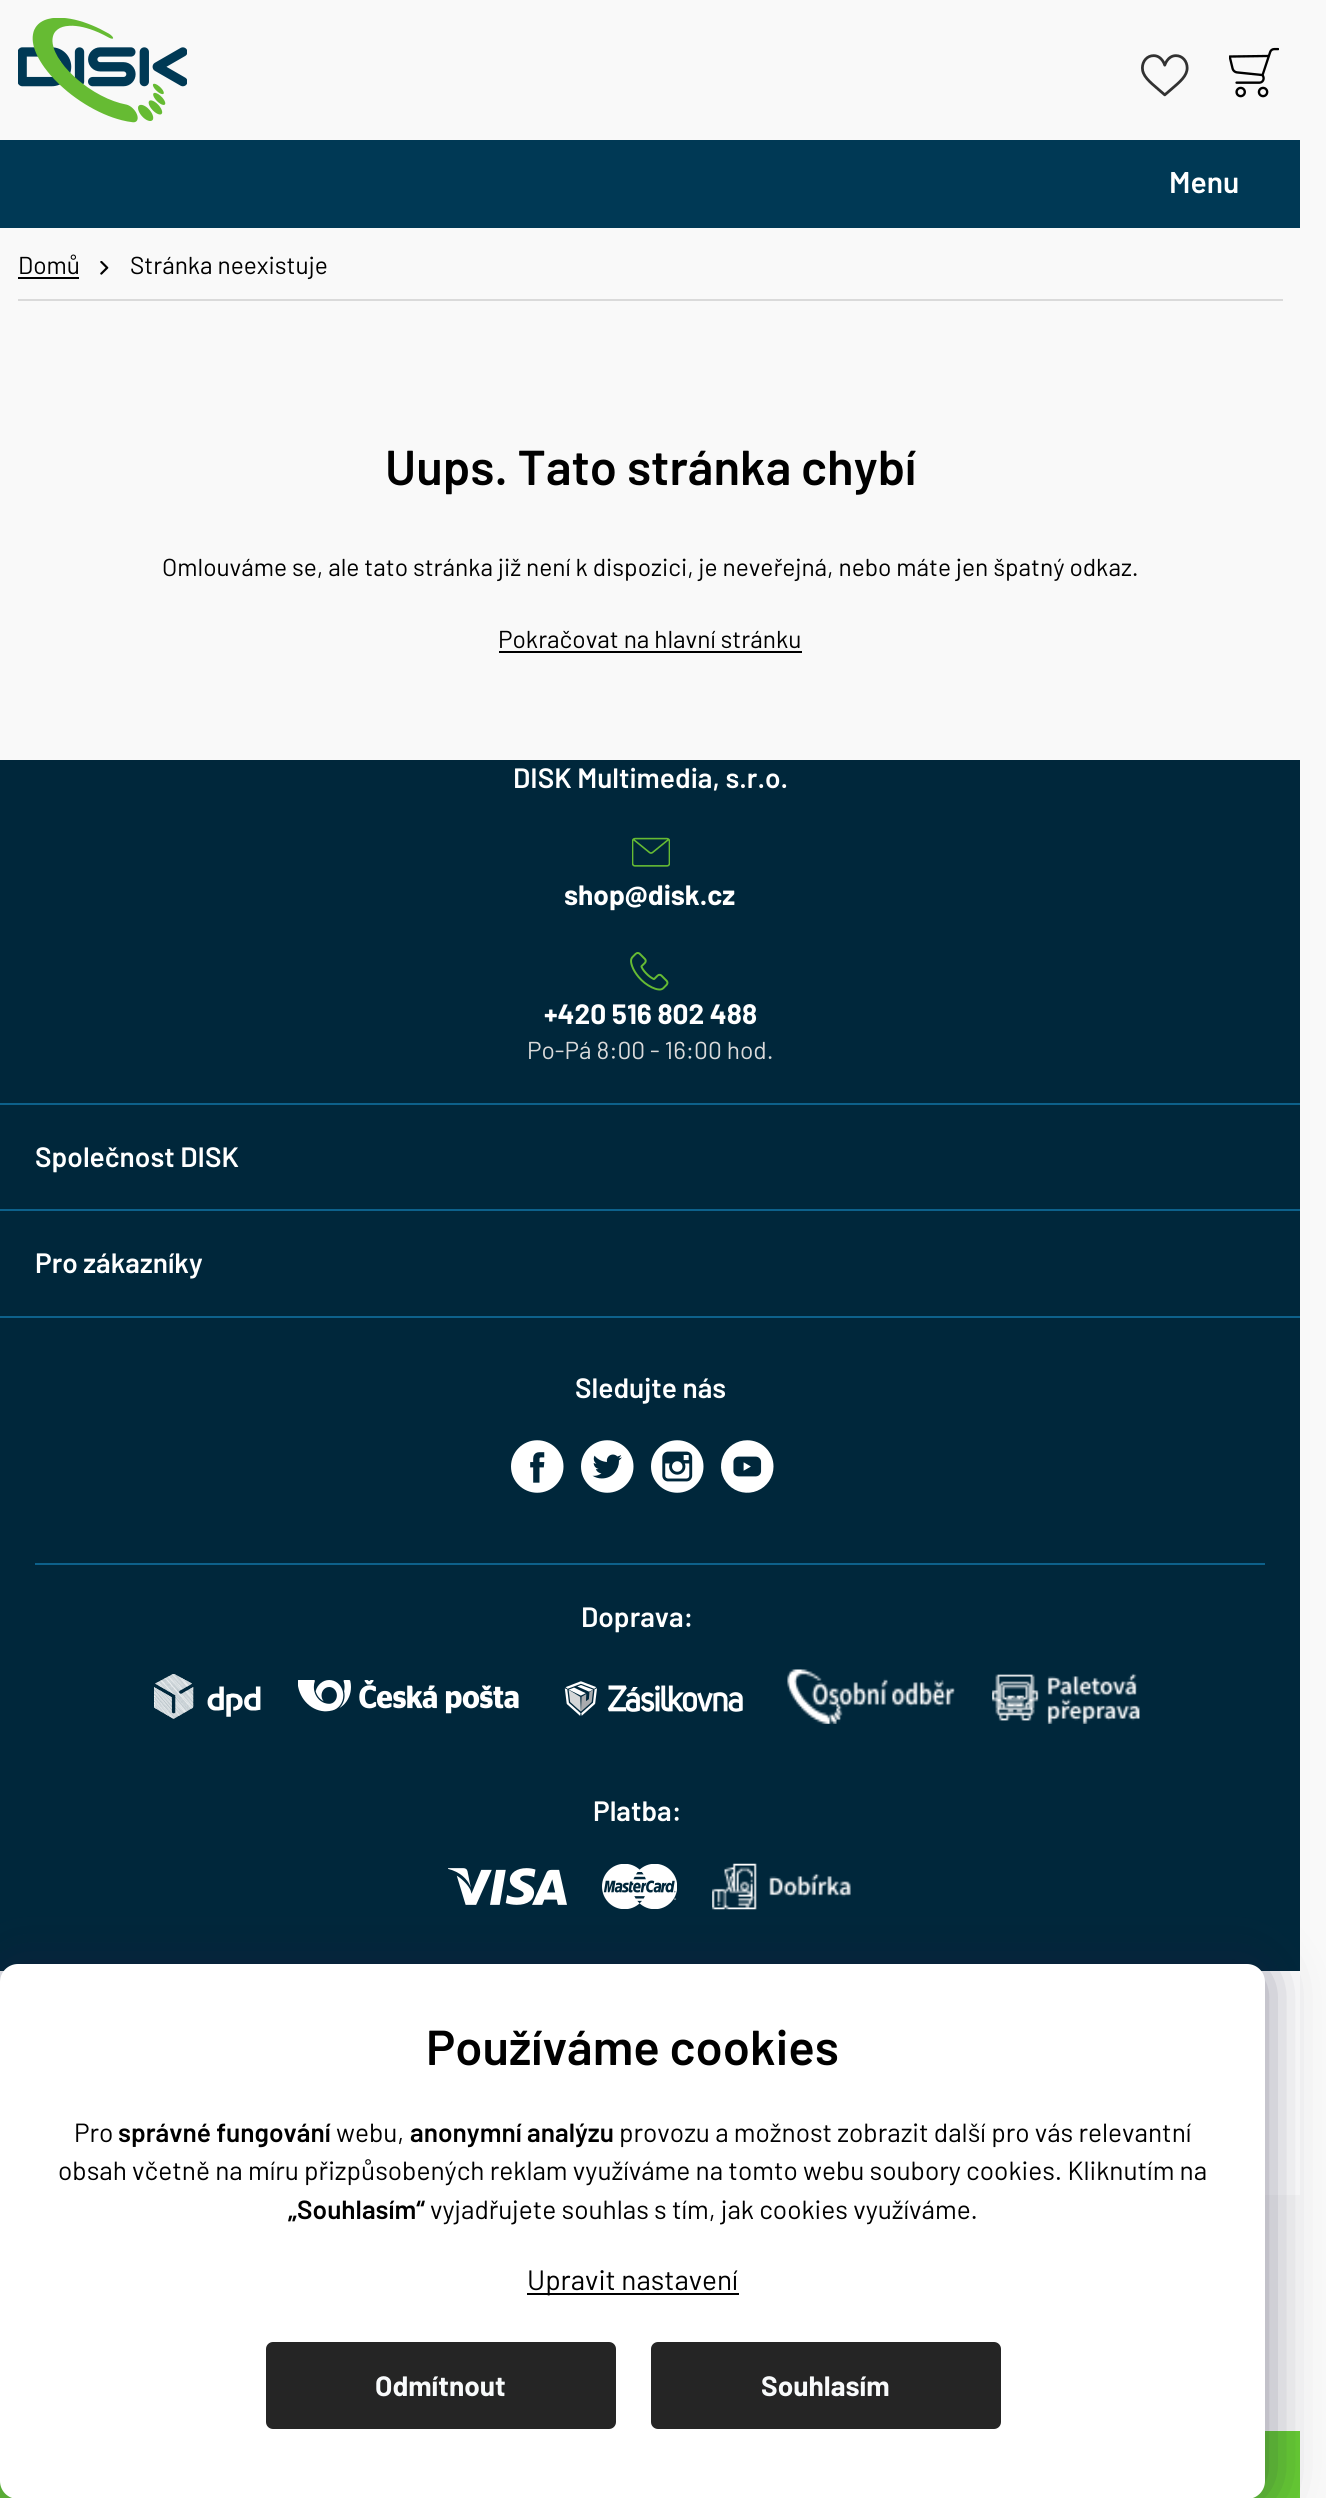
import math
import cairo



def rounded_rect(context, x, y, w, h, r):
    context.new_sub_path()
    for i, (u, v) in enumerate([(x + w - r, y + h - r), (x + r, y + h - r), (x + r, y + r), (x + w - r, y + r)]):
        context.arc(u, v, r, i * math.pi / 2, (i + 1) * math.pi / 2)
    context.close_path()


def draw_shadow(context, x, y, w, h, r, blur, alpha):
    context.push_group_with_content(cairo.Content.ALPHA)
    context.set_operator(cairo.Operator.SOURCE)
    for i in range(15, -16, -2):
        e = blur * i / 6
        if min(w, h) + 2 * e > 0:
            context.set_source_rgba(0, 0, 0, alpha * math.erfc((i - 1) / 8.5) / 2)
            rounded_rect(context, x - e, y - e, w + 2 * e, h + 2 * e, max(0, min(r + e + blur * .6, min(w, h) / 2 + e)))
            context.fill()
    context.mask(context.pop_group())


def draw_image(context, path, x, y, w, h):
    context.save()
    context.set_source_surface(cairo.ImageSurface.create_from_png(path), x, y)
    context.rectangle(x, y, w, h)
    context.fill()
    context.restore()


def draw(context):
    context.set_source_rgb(249 / 255, 249 / 255, 249 / 255)
    context.paint()
    draw_image(context, "images/1.png", 18, 18, 169, 105)
    draw_image(context, "images/2.png", 1141, 54, 48, 43)
    draw_image(context, "images/3.png", 1229, 47, 50, 51)
    context.set_source_rgb(0, 57 / 255, 85 / 255)
    context.rectangle(0, 140, 1300, 88)
    context.fill()
    context.set_source_rgb(0, 0, 0)
    context.rectangle(18, 277, 61, 2)
    context.fill()
    draw_image(context, "images/4.png", 100, 261, 9, 14)
    context.set_source_rgb(218 / 255, 218 / 255, 218 / 255)
    context.rectangle(18, 299, 1265, 2)
    context.fill()
    context.set_source_rgb(0, 0, 0)
    context.rectangle(499, 651, 303, 2)
    context.fill()
    context.set_source_rgb(0, 39 / 255, 59 / 255)
    context.rectangle(0, 760, 1300, 1211)
    context.fill()
    context.set_source_rgb(13 / 255, 97 / 255, 139 / 255)
    context.rectangle(0, 1103, 1300, 2)
    context.fill()
    draw_image(context, "images/5.png", 632, 837, 38, 30)
    draw_image(context, "images/6.png", 630, 952, 39, 39)
    context.rectangle(0, 1209, 1300, 2)
    context.fill()
    context.rectangle(0, 1316, 1300, 2)
    context.fill()
    draw_image(context, "images/7.png", 511, 1440, 53, 53)
    draw_image(context, "images/8.png", 581, 1440, 53, 53)
    draw_image(context, "images/9.png", 651, 1440, 53, 53)
    draw_image(context, "images/10.png", 721, 1440, 53, 53)
    context.rectangle(35, 1563, 1230, 2)
    context.fill()
    draw_image(context, "images/11.png", 154, 1674, 107, 45)
    draw_image(context, "images/12.png", 298, 1680, 221, 34)
    draw_image(context, "images/13.png", 564, 1681, 179, 35)
    draw_image(context, "images/14.png", 787, 1669, 168, 55)
    draw_image(context, "images/15.png", 992, 1673, 148, 51)
    draw_image(context, "images/16.png", 448, 1868, 119, 37)
    draw_image(context, "images/17.png", 602, 1864, 75, 45)
    draw_image(context, "images/18.png", 712, 1863, 139, 47)
    context.set_source_rgb(1, 1, 1)
    context.rectangle(0, 1971, 1300, 224)
    context.fill()
    context.set_source_rgb(102 / 255, 204 / 255, 51 / 255)
    context.rectangle(0, 2431, 1300, 67)
    context.fill()
    context.set_source_rgb(27 / 255, 25 / 255, 57 / 255)
    draw_shadow(context, 0, 1964, 1265, 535, 18, 26, 0.5)
    context.set_source_rgb(1, 1, 1)
    rounded_rect(context, 0, 1964, 1265, 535, 18)
    context.fill()
    context.set_source_rgb(0, 0, 0)
    context.rectangle(527, 2293, 212, 2)
    context.fill()
    context.set_source_rgb(37 / 255, 37 / 255, 37 / 255)
    rounded_rect(context, 266, 2342, 350, 87, 7)
    context.fill()
    rounded_rect(context, 651, 2342, 350, 87, 7)
    context.fill()
    context.select_font_face("Barlow SemiBold")
    context.set_font_size(30)
    context.set_source_rgb(1, 1, 1)
    context.move_to(1169, 193)
    context.show_text("Menu")
    context.select_font_face("Barlow")
    context.set_font_size(24.5)
    context.set_source_rgb(0, 0, 0)
    context.move_to(18, 274)
    context.show_text("Domů")
    context.move_to(130, 274)
    context.show_text("Stránka neexistuje")
    context.select_font_face("Barlow SemiBold")
    context.set_font_size(49)
    context.move_to(385, 485)
    context.show_text("Uups. Tato stránka chybí")
    context.select_font_face("Barlow")
    context.set_font_size(24.5)
    context.move_to(162, 576)
    context.show_text("Omlouváme se, ale tato stránka již není k dispozici, je neveřejná, nebo máte jen špatný odkaz.")
    context.move_to(498, 648)
    context.show_text("Pokračovat na hlavní stránku")
    context.select_font_face("Barlow SemiBold")
    context.set_font_size(28)
    context.set_source_rgb(1, 1, 1)
    context.move_to(513, 788)
    context.show_text("DISK Multimedia, s.r.o.")
    context.select_font_face("Barlow", cairo.FontSlant.NORMAL, cairo.FontWeight.BOLD)
    context.move_to(564, 905)
    context.show_text("shop@disk.cz")
    context.move_to(544, 1024)
    context.show_text("+420 516 802 488")
    context.select_font_face("Barlow")
    context.set_font_size(24.5)
    context.set_source_rgb(218 / 255, 218 / 255, 218 / 255)
    context.move_to(527, 1059)
    context.show_text("Po-Pá 8:00 - 16:00 hod.")
    context.select_font_face("Barlow SemiBold")
    context.set_font_size(28)
    context.set_source_rgb(1, 1, 1)
    context.move_to(35, 1167)
    context.show_text("Společnost DISK")
    context.move_to(35, 1273)
    context.show_text("Pro zákazníky")
    context.move_to(575, 1398)
    context.show_text("Sledujte nás")
    context.move_to(581, 1627)
    context.show_text("Doprava:")
    context.move_to(593, 1821)
    context.show_text("Platba:")
    context.set_font_size(49)
    context.set_source_rgb(0, 0, 0)
    context.move_to(426, 2065)
    context.show_text("Používáme cookies")
    context.select_font_face("Barlow")
    context.set_font_size(26.25)
    context.move_to(74, 2142)
    context.show_text("Pro")
    context.select_font_face("Barlow SemiBold")
    context.move_to(118, 2142)
    context.show_text("správné fungování")
    context.select_font_face("Barlow")
    context.move_to(336, 2142)
    context.show_text("webu,")
    context.select_font_face("Barlow SemiBold")
    context.move_to(410, 2142)
    context.show_text("anonymní analýzu")
    context.select_font_face("Barlow")
    context.move_to(619, 2142)
    context.show_text("provozu a možnost zobrazit další pro vás relevantní")
    context.move_to(58, 2180)
    context.show_text("obsah včetně na míru přizpůsobených reklam využíváme na tomto webu soubory cookies. Kliknutím na")
    context.select_font_face("Barlow SemiBold")
    context.move_to(288, 2219)
    context.show_text("„Souhlasím“")
    context.select_font_face("Barlow")
    context.move_to(430, 2219)
    context.show_text("vyjadřujete souhlas s tím, jak cookies využíváme.")
    context.set_font_size(28)
    context.move_to(527, 2290)
    context.show_text("Upravit nastavení")
    context.select_font_face("Barlow", cairo.FontSlant.NORMAL, cairo.FontWeight.BOLD)
    context.set_source_rgb(248 / 255, 250 / 255, 251 / 255)
    context.move_to(375, 2396)
    context.show_text("Odmítnout")
    context.move_to(761, 2396)
    context.show_text("Souhlasím")


surface = cairo.ImageSurface(cairo.Format.RGB24, 1326, 2498)
context = cairo.Context(surface)
options = cairo.FontOptions()
options.set_hint_metrics(cairo.HintMetrics.OFF)
options.set_hint_style(cairo.HintStyle.NONE)
context.set_font_options(options)
context.set_miter_limit(4)
draw(context)
surface.write_to_png("out.png")
